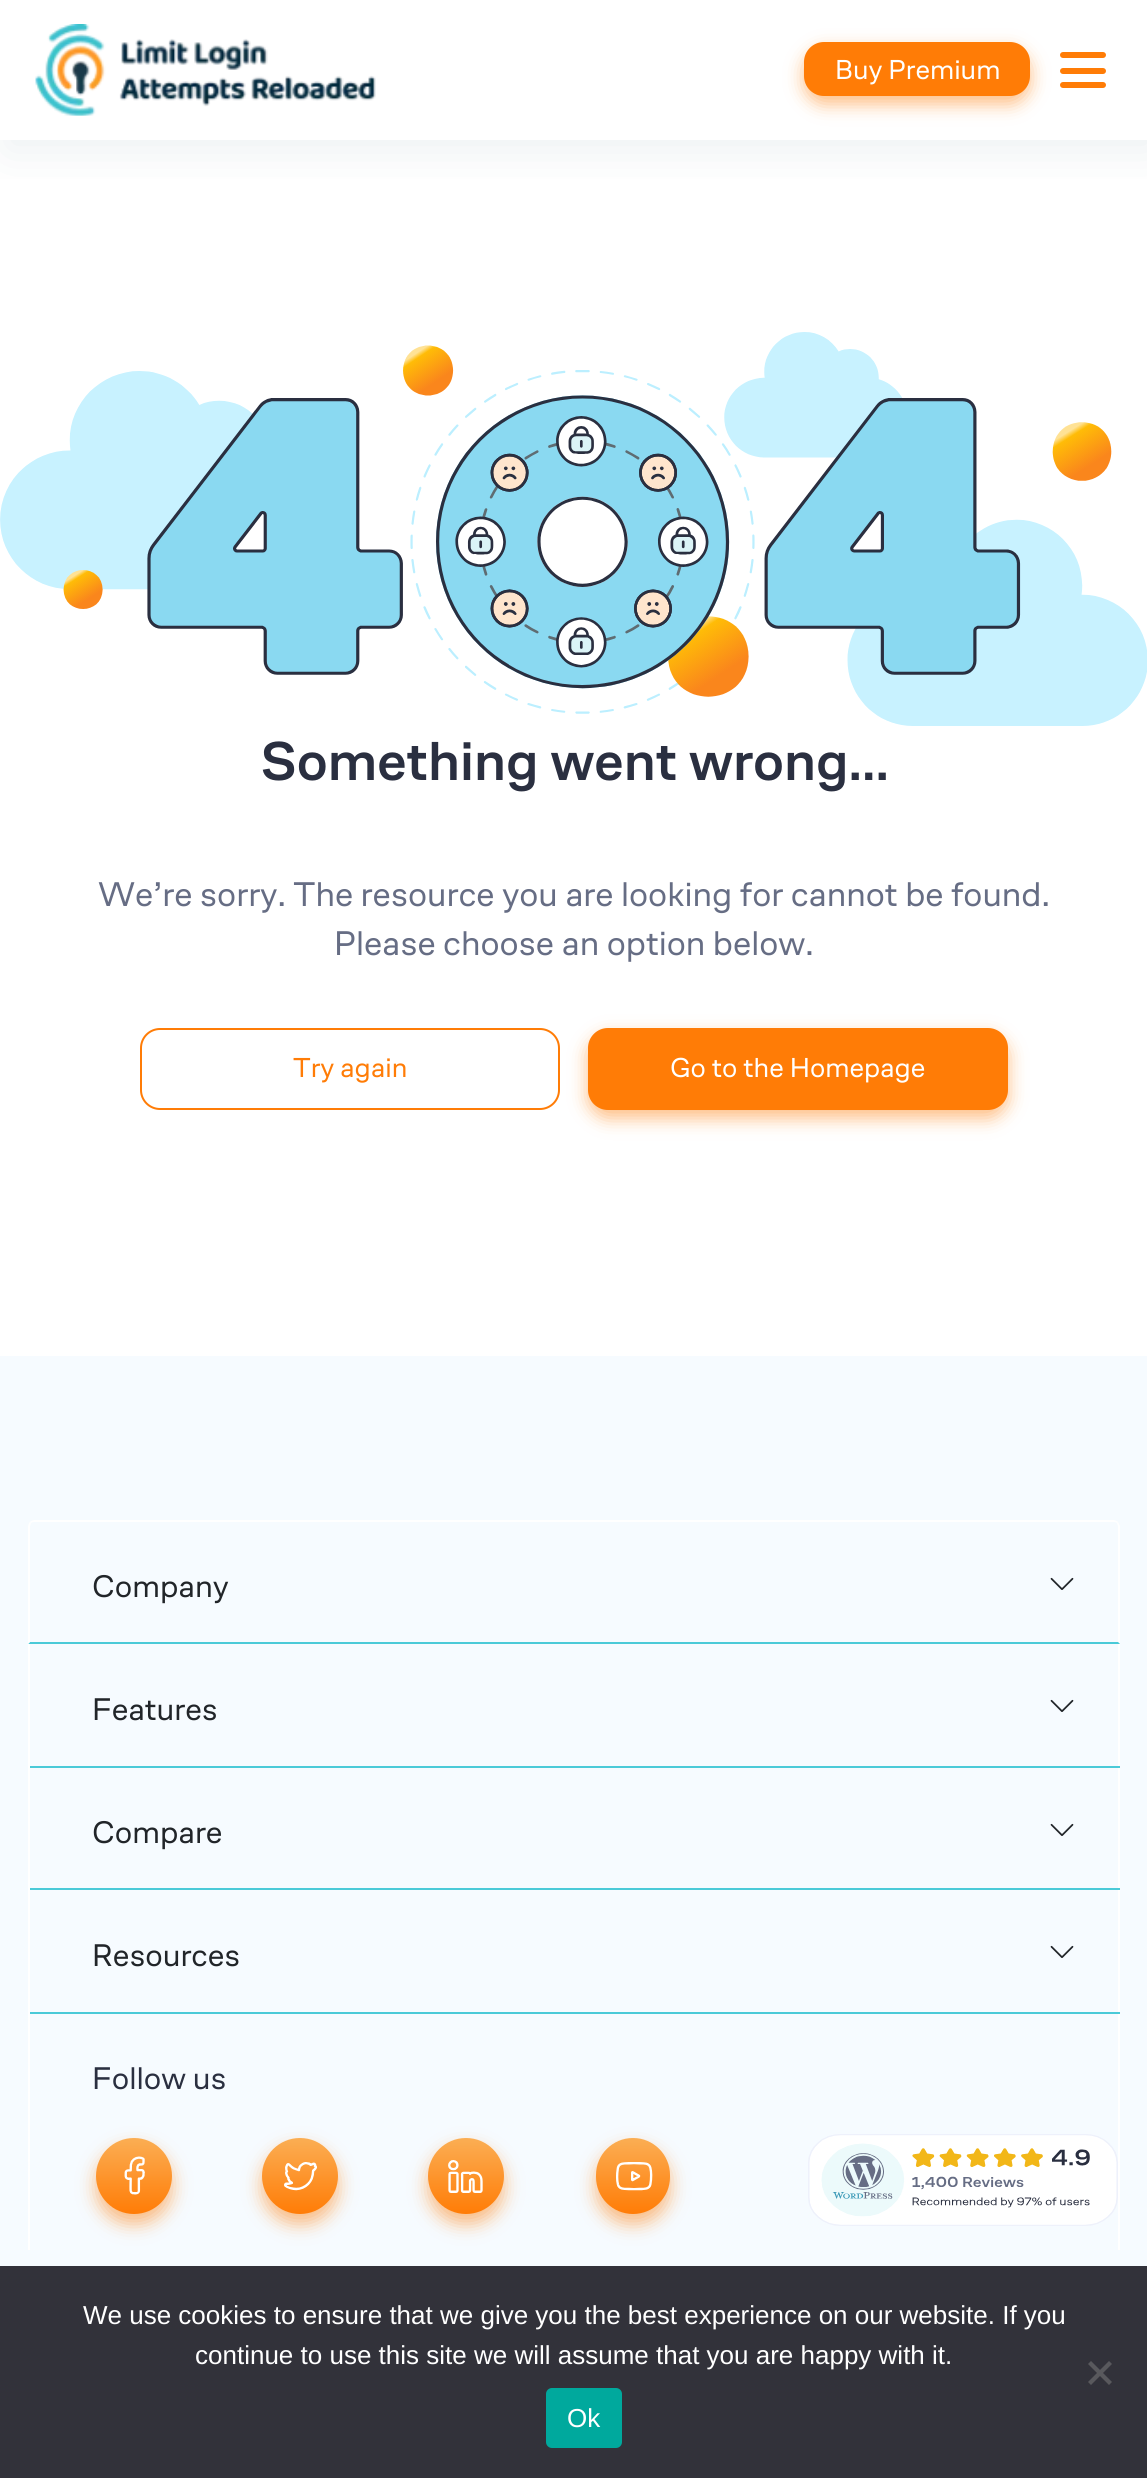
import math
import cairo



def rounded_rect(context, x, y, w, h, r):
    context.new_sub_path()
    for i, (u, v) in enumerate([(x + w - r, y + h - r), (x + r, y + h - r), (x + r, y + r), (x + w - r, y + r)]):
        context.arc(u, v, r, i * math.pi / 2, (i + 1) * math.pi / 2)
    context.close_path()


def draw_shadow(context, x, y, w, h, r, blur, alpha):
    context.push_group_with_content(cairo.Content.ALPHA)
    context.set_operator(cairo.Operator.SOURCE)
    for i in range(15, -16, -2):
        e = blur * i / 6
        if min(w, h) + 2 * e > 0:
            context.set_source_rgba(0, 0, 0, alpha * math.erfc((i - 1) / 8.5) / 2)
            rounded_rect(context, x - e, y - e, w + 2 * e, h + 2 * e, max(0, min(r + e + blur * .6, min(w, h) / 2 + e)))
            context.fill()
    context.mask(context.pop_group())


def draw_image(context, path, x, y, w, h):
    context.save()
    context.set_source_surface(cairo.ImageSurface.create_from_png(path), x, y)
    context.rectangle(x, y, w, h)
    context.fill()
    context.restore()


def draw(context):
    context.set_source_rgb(1, 1, 1)
    context.paint()
    context.save()
    context.rectangle(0, 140, 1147, 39)
    context.clip()
    context.set_source_rgb(162 / 255, 180 / 255, 189 / 255)
    draw_shadow(context, 6, 10, 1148, 140, 0, 23, 0.2)
    context.restore()
    draw_image(context, "images/1.png", 35, 24, 341, 92)
    context.set_source_rgb(1, 124 / 255, 6 / 255)
    draw_shadow(context, 804, 50, 226, 54, 20, 9, 0.5)
    context.set_source_rgb(1, 124 / 255, 6 / 255)
    rounded_rect(context, 805, 43, 224, 52, 19)
    context.fill_preserve()
    context.stroke()
    rounded_rect(context, 1060, 52, 46, 6, 3)
    context.fill()
    rounded_rect(context, 1060, 68, 46, 6, 3)
    context.fill()
    rounded_rect(context, 1060, 82, 46, 6, 3)
    context.fill()
    draw_image(context, "images/2.png", 0, 332, 1147, 394)
    rounded_rect(context, 141, 1029, 418, 80, 19)
    context.stroke()
    context.set_source_rgb(1, 124 / 255, 6 / 255)
    draw_shadow(context, 588, 1036, 420, 82, 20, 9, 0.5)
    context.set_source_rgb(1, 124 / 255, 6 / 255)
    rounded_rect(context, 589, 1029, 418, 80, 19)
    context.fill_preserve()
    context.stroke()
    context.set_source_rgb(50 / 255, 50 / 255, 58 / 255)
    context.rectangle(0, 2266, 1147, 212)
    context.fill()
    context.set_source_rgb(89 / 255, 89 / 255, 93 / 255)
    context.new_path()
    context.move_to(1109, 2361)
    context.line_to(1112, 2364)
    context.line_to(1091, 2385)
    context.line_to(1088, 2382)
    context.close_path()
    context.fill()
    context.new_path()
    context.move_to(1088, 2364)
    context.line_to(1091, 2361)
    context.line_to(1112, 2382)
    context.line_to(1109, 2385)
    context.close_path()
    context.fill()
    context.set_source_rgb(0, 169 / 255, 157 / 255)
    rounded_rect(context, 546, 2388, 76, 60, 6)
    context.fill()
    context.set_source_rgb(246 / 255, 251 / 255, 1)
    context.rectangle(0, 1356, 1147, 910)
    context.fill()
    context.set_source_rgb(1, 1, 1)
    context.new_path()
    context.move_to(35, 1520)
    context.curve_to(33, 1520, 31, 1521, 30, 1522)
    context.line_to(31, 1523)
    context.curve_to(32, 1522, 34, 1522, 35, 1522)
    context.line_to(1113, 1522)
    context.curve_to(1114, 1522, 1116, 1522, 1117, 1523)
    context.line_to(1118, 1522)
    context.curve_to(1117, 1521, 1115, 1520, 1113, 1520)
    context.close_path()
    context.fill()
    context.new_path()
    context.move_to(1120, 1644)
    context.line_to(1120, 1526)
    context.line_to(1118, 1522)
    context.line_to(1117, 1523)
    context.line_to(1118, 1526)
    context.line_to(1118, 1642)
    context.close_path()
    context.fill()
    context.set_source_rgb(74 / 255, 202 / 255, 216 / 255)
    context.new_path()
    context.move_to(1120, 1644)
    context.line_to(1118, 1642)
    context.line_to(30, 1642)
    context.line_to(28, 1644)
    context.close_path()
    context.fill()
    context.set_source_rgb(1, 1, 1)
    context.new_path()
    context.move_to(28, 1644)
    context.line_to(30, 1642)
    context.line_to(30, 1526)
    context.line_to(31, 1523)
    context.line_to(30, 1522)
    context.curve_to(29, 1523, 28, 1525, 28, 1527)
    context.close_path()
    context.fill()
    draw_image(context, "images/3.png", 1050, 1577, 24, 13)
    context.rectangle(1118, 1644, 2, 606)
    context.fill()
    context.set_source_rgb(74 / 255, 202 / 255, 216 / 255)
    context.rectangle(28, 1766, 1092, 2)
    context.fill()
    context.set_source_rgb(1, 1, 1)
    context.rectangle(28, 1644, 2, 124)
    context.fill()
    draw_image(context, "images/3.png", 1050, 1699, 24, 13)
    context.set_source_rgb(74 / 255, 202 / 255, 216 / 255)
    context.rectangle(28, 1888, 1092, 2)
    context.fill()
    context.set_source_rgb(1, 1, 1)
    context.rectangle(28, 1768, 2, 122)
    context.fill()
    draw_image(context, "images/3.png", 1050, 1823, 24, 13)
    context.set_source_rgb(74 / 255, 202 / 255, 216 / 255)
    context.rectangle(28, 2012, 1092, 2)
    context.fill()
    context.set_source_rgb(1, 1, 1)
    context.rectangle(28, 1890, 2, 360)
    context.fill()
    draw_image(context, "images/3.png", 1050, 1945, 24, 13)
    context.set_source_rgb(1, 124 / 255, 6 / 255)
    draw_shadow(context, 96, 2148, 76, 76, 38, 9, 0.5)
    gradient = cairo.LinearGradient(134, 2138, 134, 2214)
    gradient.add_color_stop_rgba(0, 251 / 255, 174 / 255, 84 / 255, 1)
    gradient.add_color_stop_rgba(1, 1, 124 / 255, 6 / 255, 1)
    context.set_source(gradient)
    context.arc(134, 2176, 38, 0, 2 * math.pi)
    context.fill()
    draw_image(context, "images/4.png", 124, 2156, 21, 39)
    context.set_source_rgb(1, 124 / 255, 6 / 255)
    draw_shadow(context, 262, 2148, 76, 76, 38, 9, 0.5)
    gradient = cairo.LinearGradient(301, 2138, 301, 2214)
    gradient.add_color_stop_rgba(0, 251 / 255, 174 / 255, 84 / 255, 1)
    gradient.add_color_stop_rgba(1, 1, 124 / 255, 6 / 255, 1)
    context.set_source(gradient)
    context.arc(300, 2176, 38, 0, 2 * math.pi)
    context.fill()
    draw_image(context, "images/5.png", 284, 2162, 33, 29)
    context.set_source_rgb(1, 124 / 255, 6 / 255)
    draw_shadow(context, 428, 2148, 76, 76, 38, 9, 0.5)
    gradient = cairo.LinearGradient(467, 2138, 467, 2214)
    gradient.add_color_stop_rgba(0, 251 / 255, 174 / 255, 84 / 255, 1)
    gradient.add_color_stop_rgba(1, 1, 124 / 255, 6 / 255, 1)
    context.set_source(gradient)
    context.arc(466, 2176, 38, 0, 2 * math.pi)
    context.fill()
    draw_image(context, "images/6.png", 448, 2160, 35, 33)
    context.set_source_rgb(1, 124 / 255, 6 / 255)
    draw_shadow(context, 596, 2148, 74, 76, 37, 9, 0.5)
    gradient = cairo.LinearGradient(633, 2138, 633, 2214)
    gradient.add_color_stop_rgba(0, 251 / 255, 174 / 255, 84 / 255, 1)
    gradient.add_color_stop_rgba(1, 1, 124 / 255, 6 / 255, 1)
    context.set_source(gradient)
    rounded_rect(context, 596, 2138, 74, 76, 37)
    context.fill()
    draw_image(context, "images/7.png", 616, 2162, 37, 29)
    draw_image(context, "images/8.png", 808, 2134, 310, 92)
    context.select_font_face("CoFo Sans")
    context.set_font_size(28)
    context.set_source_rgb(1, 1, 1)
    context.move_to(835, 79)
    context.show_text("Buy Premium")
    context.select_font_face("CoFo Sans Medium")
    context.set_font_size(56)
    context.set_source_rgb(42 / 255, 47 / 255, 64 / 255)
    context.move_to(260, 780)
    context.show_text("Something went wrong...")
    context.select_font_face("CoFo Sans")
    context.set_font_size(35)
    context.set_source_rgb(102 / 255, 109 / 255, 132 / 255)
    context.move_to(98, 906)
    context.show_text("We’re sorry. The resource you are looking for cannot be found.")
    context.move_to(334, 955)
    context.show_text("Please choose an option below.")
    context.set_font_size(28)
    context.set_source_rgb(1, 124 / 255, 6 / 255)
    context.move_to(293, 1077)
    context.show_text("Try again")
    context.set_source_rgb(1, 1, 1)
    context.move_to(670, 1077)
    context.show_text("Go to the Homepage")
    context.select_font_face("Liberation Sans")
    context.set_font_size(26)
    context.move_to(83, 2324)
    context.show_text("We use cookies to ensure that we give you the best experience on our website. If you")
    context.move_to(195, 2364)
    context.show_text("continue to use this site we will assume that you are happy with it.")
    context.move_to(567, 2427)
    context.show_text("Ok")
    context.select_font_face("CoFo Sans")
    context.set_font_size(32)
    context.set_source_rgb(33 / 255, 37 / 255, 41 / 255)
    context.move_to(92, 1597)
    context.show_text("Company")
    context.move_to(92, 1720)
    context.show_text("Features")
    context.move_to(92, 1843)
    context.show_text("Compare")
    context.move_to(92, 1966)
    context.show_text("Resources")
    context.set_source_rgb(42 / 255, 47 / 255, 64 / 255)
    context.move_to(92, 2089)
    context.show_text("Follow us")


surface = cairo.ImageSurface(cairo.Format.RGB24, 1147, 2478)
context = cairo.Context(surface)
options = cairo.FontOptions()
options.set_hint_metrics(cairo.HintMetrics.OFF)
options.set_hint_style(cairo.HintStyle.NONE)
context.set_font_options(options)
context.set_miter_limit(4)
draw(context)
surface.write_to_png("out.png")
